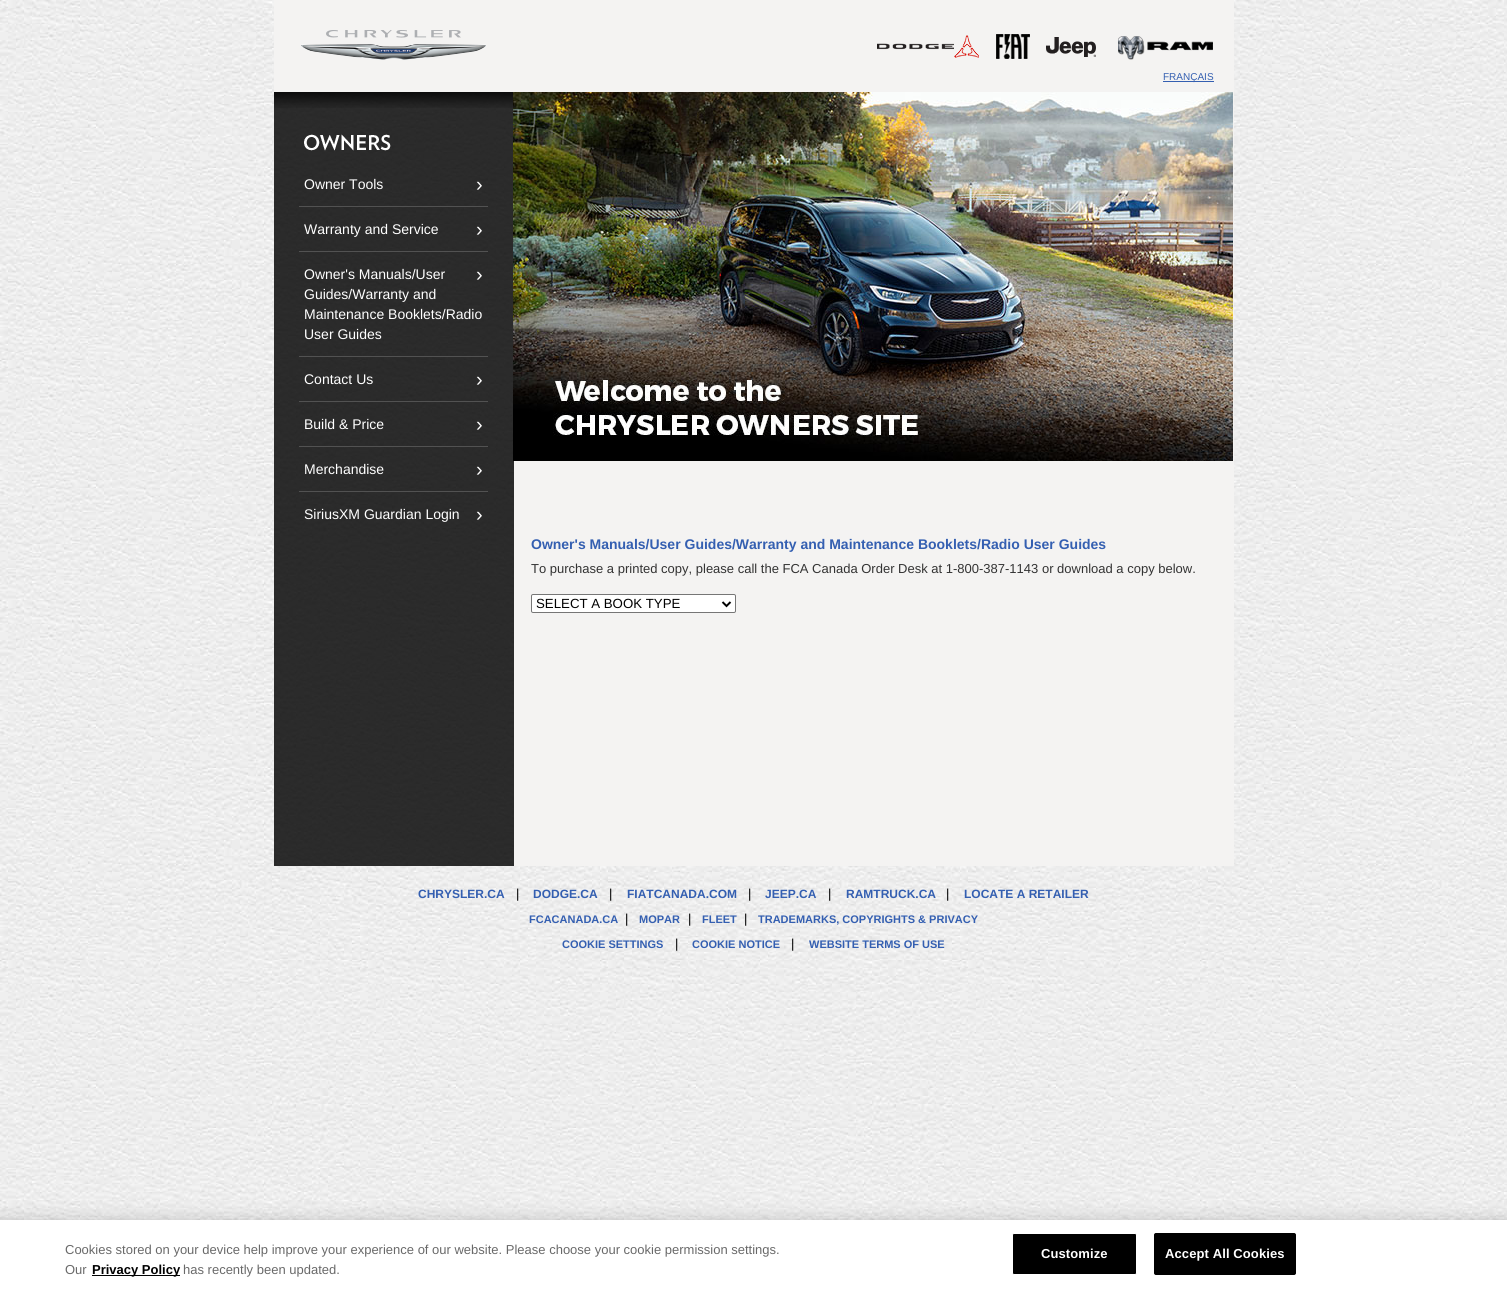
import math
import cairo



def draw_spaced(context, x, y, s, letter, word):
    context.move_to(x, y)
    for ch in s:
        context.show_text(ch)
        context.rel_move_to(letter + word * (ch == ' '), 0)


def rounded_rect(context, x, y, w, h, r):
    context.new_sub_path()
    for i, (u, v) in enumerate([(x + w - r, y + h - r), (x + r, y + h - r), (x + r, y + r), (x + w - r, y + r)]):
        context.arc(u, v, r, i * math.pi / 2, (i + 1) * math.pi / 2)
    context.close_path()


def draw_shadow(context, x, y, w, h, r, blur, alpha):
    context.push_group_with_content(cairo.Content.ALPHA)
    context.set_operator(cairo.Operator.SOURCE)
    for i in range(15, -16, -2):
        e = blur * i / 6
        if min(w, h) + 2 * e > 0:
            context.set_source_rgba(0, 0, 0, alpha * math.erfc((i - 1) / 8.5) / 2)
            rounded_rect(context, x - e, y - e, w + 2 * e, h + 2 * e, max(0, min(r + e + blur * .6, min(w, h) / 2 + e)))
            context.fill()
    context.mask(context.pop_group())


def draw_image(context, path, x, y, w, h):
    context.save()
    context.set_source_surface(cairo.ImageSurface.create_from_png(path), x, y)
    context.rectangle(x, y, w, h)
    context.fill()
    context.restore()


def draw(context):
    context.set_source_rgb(1, 1, 1)
    context.paint()
    draw_image(context, "images/1.png", 0, 0, 1507, 1220)
    context.set_source_rgb(244 / 255, 243 / 255, 242 / 255)
    context.rectangle(274, 0, 960, 92)
    context.fill()
    draw_image(context, "images/2.png", 301, 30, 185, 30)
    draw_image(context, "images/3.png", 877, 34, 336, 26)
    context.set_source_rgb(52 / 255, 95 / 255, 177 / 255)
    context.rectangle(1163, 81, 51, 1)
    context.fill()
    draw_image(context, "images/4.png", 274, 92, 960, 774)
    draw_image(context, "images/5.png", 274, 92, 239, 16)
    draw_image(context, "images/6.png", 304, 134, 87, 17)
    context.set_source_rgb(82 / 255, 82 / 255, 82 / 255)
    context.rectangle(299, 206, 189, 1)
    context.fill()
    context.rectangle(299, 251, 189, 1)
    context.fill()
    context.rectangle(299, 356, 189, 1)
    context.fill()
    context.rectangle(299, 401, 189, 1)
    context.fill()
    context.rectangle(299, 446, 189, 1)
    context.fill()
    context.rectangle(299, 491, 189, 1)
    context.fill()
    draw_image(context, "images/7.png", 513, 92, 720, 369)
    context.set_source_rgb(1, 1, 1)
    rounded_rect(context, 531.5, 594.5, 204, 18, 1.5)
    context.fill_preserve()
    context.set_source_rgb(118 / 255, 118 / 255, 118 / 255)
    context.set_line_width(1)
    context.stroke()
    context.new_path()
    context.move_to(722.5, 602)
    context.line_to(726.5, 606)
    context.line_to(730.5, 602)
    context.set_source_rgb(0, 0, 0)
    context.set_line_width(2)
    context.stroke()
    context.set_source_rgb(0, 0, 0)
    draw_shadow(context, 0, 1220, 1507, 71, 0, 9, 0.2)
    context.set_source_rgb(1, 1, 1)
    context.rectangle(0, 1220, 1507, 71)
    context.fill()
    context.set_source_rgb(0, 0, 0)
    context.rectangle(92, 1275, 88, 1)
    context.fill()
    rounded_rect(context, 1012.5, 1233.5, 124, 41, 1.5)
    context.fill_preserve()
    context.set_source_rgb(1, 1, 1)
    context.set_line_width(1)
    context.stroke()
    context.set_source_rgb(0, 0, 0)
    rounded_rect(context, 1154.5, 1233.5, 141, 41, 1.5)
    context.fill_preserve()
    context.stroke()
    context.select_font_face("Liberation Sans")
    context.set_font_size(10)
    context.set_source_rgb(52 / 255, 95 / 255, 177 / 255)
    context.move_to(1163, 80)
    context.show_text("FRANÇAIS")
    context.set_font_size(14)
    context.set_source_rgb(1, 1, 1)
    context.move_to(304, 189)
    context.show_text("Owner Tools")
    context.set_font_size(20)
    context.move_to(476, 191)
    context.show_text("›")
    context.set_font_size(14)
    context.move_to(304, 234)
    context.show_text("Warranty and Service")
    context.set_font_size(20)
    context.move_to(476, 236)
    context.show_text("›")
    context.set_font_size(14)
    context.move_to(304, 279)
    context.show_text("Owner's Manuals/User")
    context.set_font_size(20)
    context.move_to(476, 281)
    context.show_text("›")
    context.set_font_size(14)
    context.move_to(304, 299)
    context.show_text("Guides/Warranty and")
    context.move_to(304, 319)
    context.show_text("Maintenance Booklets/Radio")
    context.move_to(304, 339)
    context.show_text("User Guides")
    context.move_to(304, 384)
    context.show_text("Contact Us")
    context.set_font_size(20)
    context.move_to(476, 386)
    context.show_text("›")
    context.set_font_size(14)
    context.move_to(304, 429)
    context.show_text("Build & Price")
    context.set_font_size(20)
    context.move_to(476, 431)
    context.show_text("›")
    context.set_font_size(14)
    context.move_to(304, 474)
    context.show_text("Merchandise")
    context.set_font_size(20)
    context.move_to(476, 476)
    context.show_text("›")
    context.set_font_size(14)
    context.move_to(304, 519)
    context.show_text("SiriusXM Guardian Login")
    context.set_font_size(20)
    context.move_to(476, 521)
    context.show_text("›")
    context.select_font_face("Liberation Sans", cairo.FontSlant.NORMAL, cairo.FontWeight.BOLD)
    context.set_font_size(14)
    context.set_source_rgb(52 / 255, 95 / 255, 177 / 255)
    context.move_to(531, 549)
    context.show_text("Owner's Manuals/User Guides/Warranty and Maintenance Booklets/Radio User Guides")
    context.select_font_face("Liberation Sans")
    context.set_font_size(13)
    context.set_source_rgb(51 / 255, 51 / 255, 51 / 255)
    context.move_to(531, 573)
    context.show_text("To purchase a printed copy, please call the FCA Canada Order Desk at 1-800-387-1143 or download a copy below.")
    context.set_font_size(13.25)
    context.set_source_rgb(0, 0, 0)
    context.move_to(536, 608)
    context.show_text("SELECT A BOOK TYPE")
    context.select_font_face("Liberation Sans", cairo.FontSlant.NORMAL, cairo.FontWeight.BOLD)
    context.set_font_size(12)
    context.set_source_rgb(52 / 255, 95 / 255, 177 / 255)
    context.move_to(418, 898)
    context.show_text("CHRYSLER.CA")
    context.select_font_face("Liberation Sans")
    context.set_font_size(13)
    context.set_source_rgb(0, 0, 0)
    context.move_to(516, 898)
    context.show_text("|")
    context.select_font_face("Liberation Sans", cairo.FontSlant.NORMAL, cairo.FontWeight.BOLD)
    context.set_font_size(12)
    context.set_source_rgb(52 / 255, 95 / 255, 177 / 255)
    context.move_to(533, 898)
    context.show_text("DODGE.CA")
    context.select_font_face("Liberation Sans")
    context.set_font_size(13)
    context.set_source_rgb(0, 0, 0)
    context.move_to(609, 898)
    context.show_text("|")
    context.select_font_face("Liberation Sans", cairo.FontSlant.NORMAL, cairo.FontWeight.BOLD)
    context.set_font_size(12)
    context.set_source_rgb(52 / 255, 95 / 255, 177 / 255)
    context.move_to(627, 898)
    context.show_text("FIATCANADA.COM")
    context.select_font_face("Liberation Sans")
    context.set_font_size(13)
    context.set_source_rgb(0, 0, 0)
    context.move_to(748, 898)
    context.show_text("|")
    context.select_font_face("Liberation Sans", cairo.FontSlant.NORMAL, cairo.FontWeight.BOLD)
    context.set_font_size(12)
    context.set_source_rgb(52 / 255, 95 / 255, 177 / 255)
    context.move_to(765, 898)
    context.show_text("JEEP.CA")
    context.select_font_face("Liberation Sans")
    context.set_font_size(13)
    context.set_source_rgb(0, 0, 0)
    context.move_to(828, 898)
    context.show_text("|")
    context.select_font_face("Liberation Sans", cairo.FontSlant.NORMAL, cairo.FontWeight.BOLD)
    context.set_font_size(12)
    context.set_source_rgb(52 / 255, 95 / 255, 177 / 255)
    context.move_to(846, 898)
    context.show_text("RAMTRUCK.CA")
    context.select_font_face("Liberation Sans")
    context.set_font_size(13)
    context.set_source_rgb(0, 0, 0)
    context.move_to(946, 898)
    context.show_text("|")
    context.select_font_face("Liberation Sans", cairo.FontSlant.NORMAL, cairo.FontWeight.BOLD)
    context.set_font_size(12)
    context.set_source_rgb(52 / 255, 95 / 255, 177 / 255)
    context.move_to(964, 898)
    context.show_text("LOCATE A RETAILER")
    context.set_font_size(11)
    context.move_to(529, 923)
    context.show_text("FCACANADA.CA")
    context.select_font_face("Liberation Sans")
    context.set_font_size(13)
    context.set_source_rgb(0, 0, 0)
    context.move_to(625, 923)
    context.show_text("|")
    context.select_font_face("Liberation Sans", cairo.FontSlant.NORMAL, cairo.FontWeight.BOLD)
    context.set_font_size(11)
    context.set_source_rgb(52 / 255, 95 / 255, 177 / 255)
    context.move_to(639, 923)
    context.show_text("MOPAR")
    context.select_font_face("Liberation Sans")
    context.set_font_size(13)
    context.set_source_rgb(0, 0, 0)
    context.move_to(688, 923)
    context.show_text("|")
    context.select_font_face("Liberation Sans", cairo.FontSlant.NORMAL, cairo.FontWeight.BOLD)
    context.set_font_size(11)
    context.set_source_rgb(52 / 255, 95 / 255, 177 / 255)
    context.move_to(702, 923)
    context.show_text("FLEET")
    context.select_font_face("Liberation Sans")
    context.set_font_size(13)
    context.set_source_rgb(0, 0, 0)
    context.move_to(744, 923)
    context.show_text("|")
    context.select_font_face("Liberation Sans", cairo.FontSlant.NORMAL, cairo.FontWeight.BOLD)
    context.set_font_size(11)
    context.set_source_rgb(52 / 255, 95 / 255, 177 / 255)
    context.move_to(758, 923)
    context.show_text("TRADEMARKS, COPYRIGHTS & PRIVACY")
    context.move_to(562, 948)
    context.show_text("COOKIE SETTINGS")
    context.select_font_face("Liberation Sans")
    context.set_font_size(13)
    context.set_source_rgb(0, 0, 0)
    context.move_to(675, 948)
    context.show_text("|")
    context.select_font_face("Liberation Sans", cairo.FontSlant.NORMAL, cairo.FontWeight.BOLD)
    context.set_font_size(11)
    context.set_source_rgb(52 / 255, 95 / 255, 177 / 255)
    context.move_to(692, 948)
    context.show_text("COOKIE NOTICE")
    context.select_font_face("Liberation Sans")
    context.set_font_size(13)
    context.set_source_rgb(0, 0, 0)
    context.move_to(791, 948)
    context.show_text("|")
    context.select_font_face("Liberation Sans", cairo.FontSlant.NORMAL, cairo.FontWeight.BOLD)
    context.set_font_size(11)
    context.set_source_rgb(52 / 255, 95 / 255, 177 / 255)
    context.move_to(809, 948)
    context.show_text("WEBSITE TERMS OF USE")
    context.select_font_face("Liberation Sans")
    context.set_font_size(13)
    context.set_source_rgb(105 / 255, 105 / 255, 105 / 255)
    context.move_to(65, 1254)
    context.show_text("Cookies stored on your device help improve your experience of our website. Please choose your cookie permission settings.")
    context.move_to(65, 1274)
    context.show_text("Our")
    context.select_font_face("Liberation Sans", cairo.FontSlant.NORMAL, cairo.FontWeight.BOLD)
    context.set_source_rgb(0, 0, 0)
    context.move_to(92, 1274)
    context.show_text("Privacy Policy")
    context.select_font_face("Liberation Sans")
    context.set_source_rgb(105 / 255, 105 / 255, 105 / 255)
    context.move_to(183, 1274)
    context.show_text("has recently been updated.")
    context.select_font_face("Liberation Sans", cairo.FontSlant.NORMAL, cairo.FontWeight.BOLD)
    context.set_source_rgb(1, 1, 1)
    draw_spaced(context, 1041, 1258, "Customize", 0.1, 0)
    draw_spaced(context, 1165, 1258, "Accept All Cookies", 0.1, 0)


surface = cairo.ImageSurface(cairo.Format.RGB24, 1507, 1291)
context = cairo.Context(surface)
options = cairo.FontOptions()
options.set_hint_metrics(cairo.HintMetrics.OFF)
options.set_hint_style(cairo.HintStyle.NONE)
context.set_font_options(options)
context.set_miter_limit(4)
draw(context)
surface.write_to_png("out.png")
